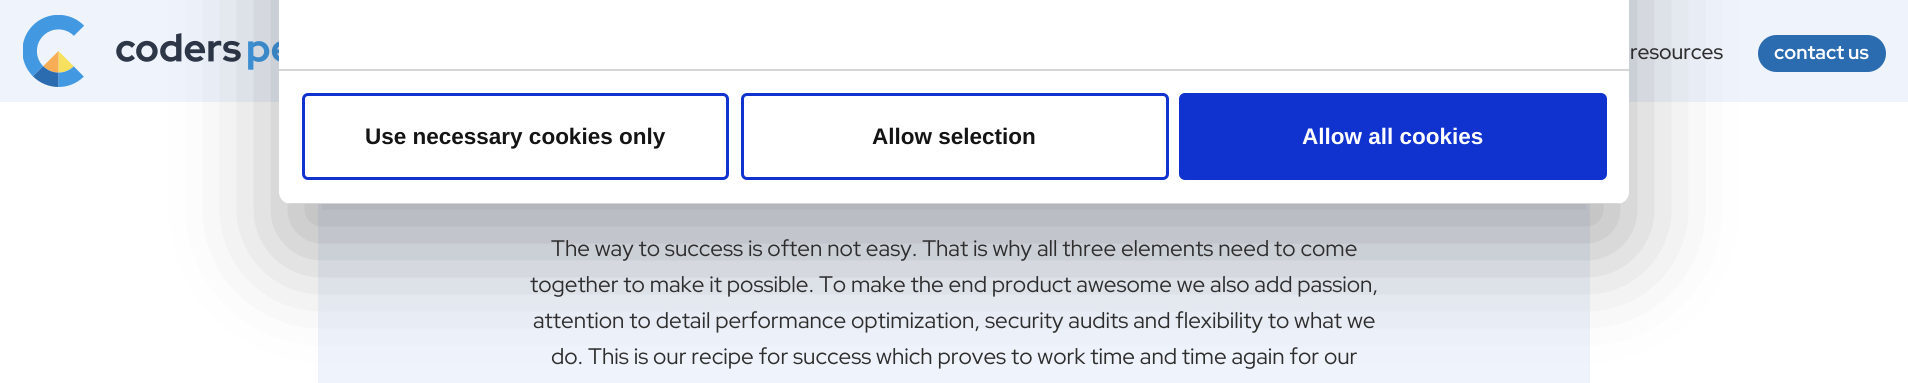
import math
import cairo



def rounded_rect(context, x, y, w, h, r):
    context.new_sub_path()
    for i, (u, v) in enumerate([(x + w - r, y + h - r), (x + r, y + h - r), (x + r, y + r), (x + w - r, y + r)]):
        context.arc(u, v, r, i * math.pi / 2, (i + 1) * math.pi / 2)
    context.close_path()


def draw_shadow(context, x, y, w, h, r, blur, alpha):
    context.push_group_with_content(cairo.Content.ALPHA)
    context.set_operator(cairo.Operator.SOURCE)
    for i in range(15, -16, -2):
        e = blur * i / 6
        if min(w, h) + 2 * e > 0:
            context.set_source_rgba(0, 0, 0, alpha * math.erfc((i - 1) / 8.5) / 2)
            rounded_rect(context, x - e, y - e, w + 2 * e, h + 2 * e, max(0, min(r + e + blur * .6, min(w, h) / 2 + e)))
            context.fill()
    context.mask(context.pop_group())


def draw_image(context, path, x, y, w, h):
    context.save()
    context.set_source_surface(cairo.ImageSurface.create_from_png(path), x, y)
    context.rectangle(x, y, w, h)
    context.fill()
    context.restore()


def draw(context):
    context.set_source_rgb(1, 1, 1)
    context.paint()
    context.set_source_rgb(239 / 255, 243 / 255, 251 / 255)
    context.rectangle(0, 0, 1908, 102)
    context.fill()
    draw_image(context, "images/1.png", 23, 15, 256, 72)
    context.set_source_rgb(43 / 255, 108 / 255, 176 / 255)
    rounded_rect(context, 1759.5, 36.5, 125, 34, 17)
    context.fill_preserve()
    context.set_line_width(3)
    context.stroke()
    context.set_source_rgb(239 / 255, 243 / 255, 251 / 255)
    context.rectangle(318, 204, 1272, 179)
    context.fill()
    context.set_source_rgb(0, 0, 0)
    draw_shadow(context, 279, -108, 1350, 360, 12, 51, 0.3)
    context.set_source_rgb(1, 1, 1)
    rounded_rect(context, 279, -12, 1350, 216, 12)
    context.fill()
    context.set_source_rgb(214 / 255, 214 / 255, 214 / 255)
    context.rectangle(279, 69, 1350, 2)
    context.fill()
    context.save()
    rounded_rect(context, 279, -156, 1350, 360, 12)
    context.clip()
    context.rectangle(279, 203, 1350, 1)
    context.fill()
    context.restore()
    rounded_rect(context, 303.5, 94.5, 424, 84, 4.5)
    context.set_source_rgb(16 / 255, 50 / 255, 207 / 255)
    context.stroke()
    rounded_rect(context, 742.5, 94.5, 425, 84, 4.5)
    context.stroke()
    rounded_rect(context, 1180.5, 94.5, 425, 84, 4.5)
    context.fill_preserve()
    context.stroke()
    context.select_font_face("Red Hat Display Medium")
    context.set_font_size(21)
    context.set_source_rgb(46 / 255, 46 / 255, 46 / 255)
    context.move_to(1630, 59)
    context.show_text("resources")
    context.select_font_face("Red Hat Display", cairo.FontSlant.NORMAL, cairo.FontWeight.BOLD)
    context.set_font_size(19.5)
    context.set_source_rgb(1, 1, 1)
    context.move_to(1774, 59)
    context.show_text("contact us")
    context.select_font_face("Red Hat Display")
    context.set_font_size(22.5)
    context.set_source_rgb(46 / 255, 46 / 255, 46 / 255)
    context.move_to(551, 256)
    context.show_text("The way to success is often not easy. That is why all three elements need to come")
    context.move_to(530, 292)
    context.show_text("together to make it possible. To make the end product awesome we also add passion,")
    context.move_to(533, 328)
    context.show_text("attention to detail performance optimization, security audits and flexibility to what we")
    context.move_to(551, 364)
    context.show_text("do. This is our recipe for success which proves to work time and time again for our")
    context.select_font_face("Liberation Sans", cairo.FontSlant.NORMAL, cairo.FontWeight.BOLD)
    context.set_source_rgb(20 / 255, 20 / 255, 20 / 255)
    context.move_to(365, 144)
    context.show_text("Use necessary cookies only")
    context.move_to(872, 144)
    context.show_text("Allow selection")
    context.set_source_rgb(1, 1, 1)
    context.move_to(1302, 144)
    context.show_text("Allow all cookies")


surface = cairo.ImageSurface(cairo.Format.RGB24, 1908, 383)
context = cairo.Context(surface)
options = cairo.FontOptions()
options.set_hint_metrics(cairo.HintMetrics.OFF)
options.set_hint_style(cairo.HintStyle.NONE)
context.set_font_options(options)
context.set_miter_limit(4)
draw(context)
surface.write_to_png("out.png")
